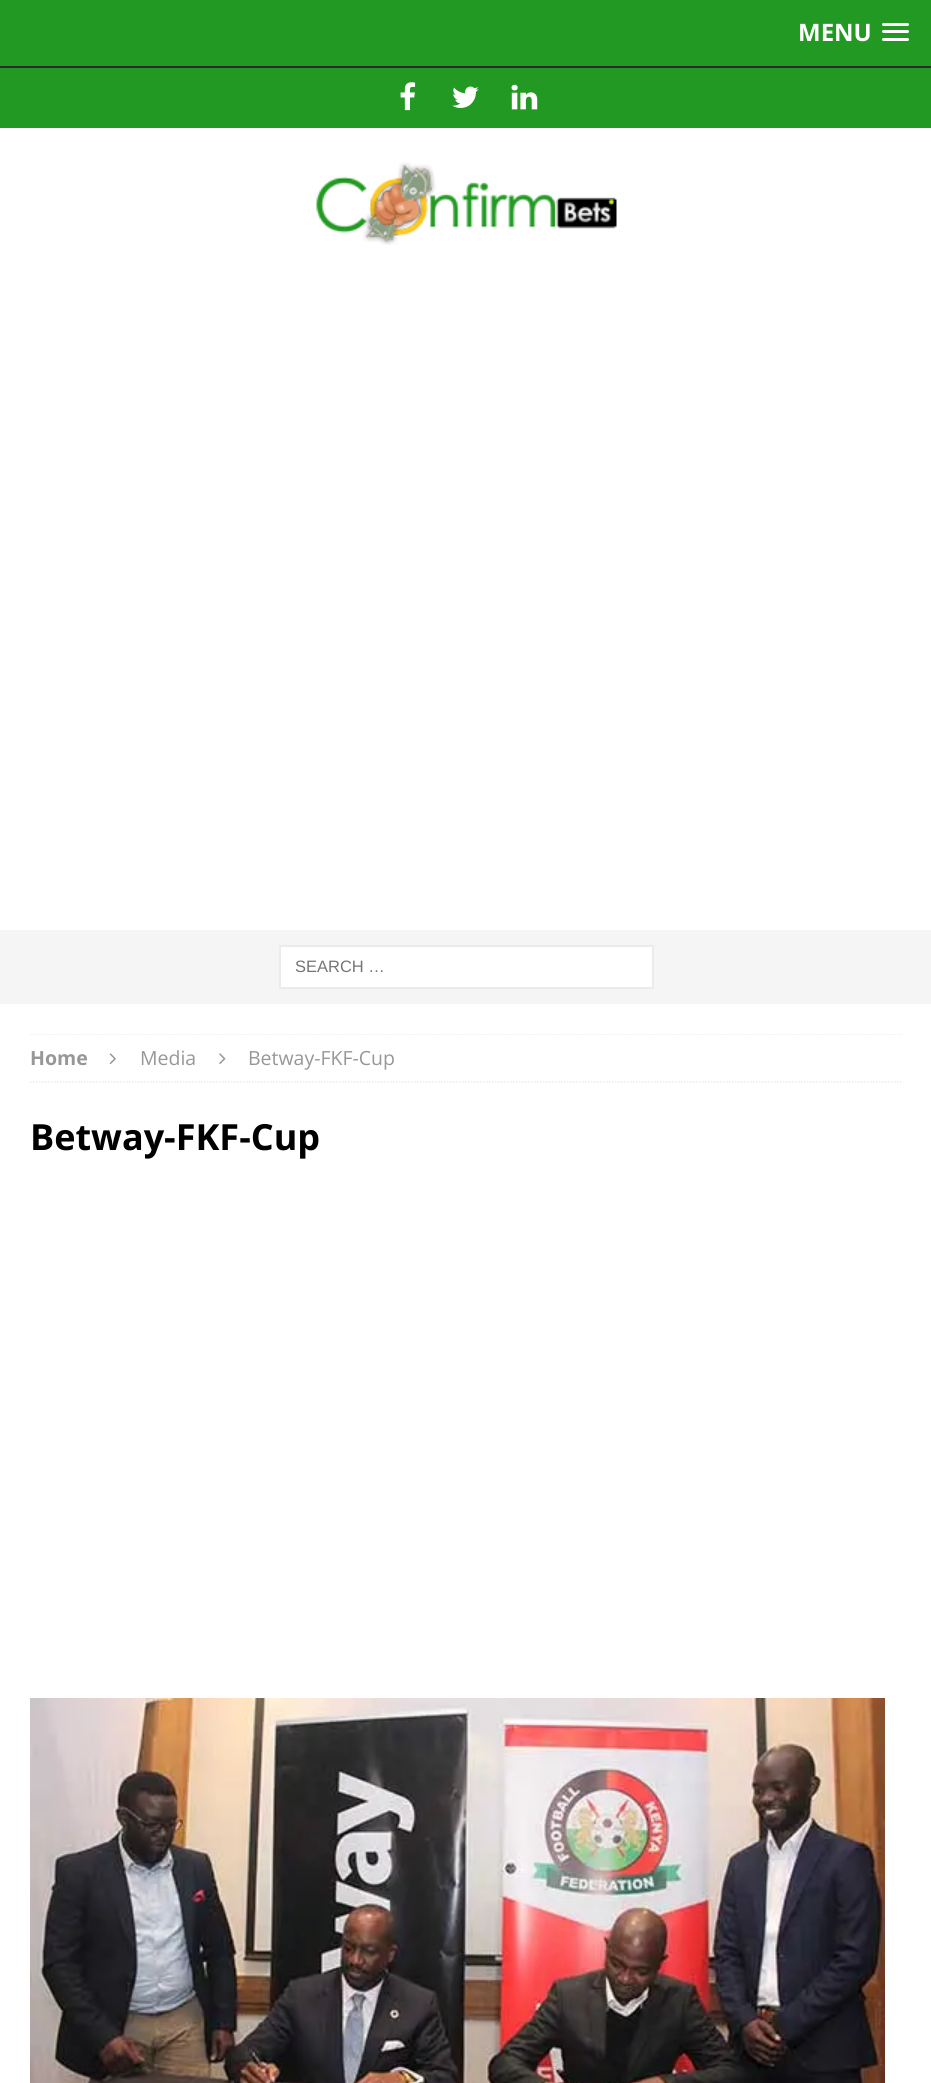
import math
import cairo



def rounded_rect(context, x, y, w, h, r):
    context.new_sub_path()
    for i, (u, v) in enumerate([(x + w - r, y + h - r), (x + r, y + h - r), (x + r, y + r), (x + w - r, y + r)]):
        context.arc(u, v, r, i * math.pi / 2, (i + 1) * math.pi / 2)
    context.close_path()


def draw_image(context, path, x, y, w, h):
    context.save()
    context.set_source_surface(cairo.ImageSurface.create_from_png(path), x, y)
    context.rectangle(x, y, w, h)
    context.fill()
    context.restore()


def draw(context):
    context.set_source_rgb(34 / 255, 153 / 255, 34 / 255)
    context.paint()
    context.set_source_rgb(42 / 255, 42 / 255, 42 / 255)
    context.rectangle(0, 66, 931, 2)
    context.fill()
    context.set_source_rgb(1, 1, 1)
    rounded_rect(context, 882, 23, 27, 3, 1.5)
    context.fill()
    rounded_rect(context, 882, 30, 27, 3, 1.5)
    context.fill()
    rounded_rect(context, 882, 38, 27, 3, 1.5)
    context.fill()
    draw_image(context, "images/1.png", 400, 82, 16, 29)
    draw_image(context, "images/2.png", 452, 86, 27, 22)
    draw_image(context, "images/3.png", 511, 84, 27, 26)
    context.rectangle(0, 128, 931, 802)
    context.fill()
    draw_image(context, "images/4.png", 316, 162, 301, 83)
    context.set_source_rgb(245 / 255, 245 / 255, 245 / 255)
    context.rectangle(0, 930, 931, 74)
    context.fill()
    context.set_source_rgb(1, 1, 1)
    context.rectangle(280, 946, 373, 42)
    context.fill_preserve()
    context.set_source_rgb(235 / 255, 235 / 255, 235 / 255)
    context.stroke()
    context.set_source_rgb(1, 1, 1)
    context.rectangle(0, 1004, 931, 1079)
    context.fill()
    context.save()
    context.rectangle(30, 1034, 872, 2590)
    context.clip()
    context.new_path()
    context.move_to(30, 1034)
    context.line_to(901.5, 1034)
    context.set_source_rgb(235 / 255, 235 / 255, 235 / 255)
    context.set_line_width(1.5)
    context.set_dash([1.5, 1.5])
    context.stroke()
    context.restore()
    context.new_path()
    context.move_to(30, 1082)
    context.line_to(901.5, 1082)
    context.set_source_rgb(235 / 255, 235 / 255, 235 / 255)
    context.set_line_width(1.5)
    context.set_dash([1.5, 1.5])
    context.stroke()
    draw_image(context, "images/5.png", 109, 1053, 7, 12)
    draw_image(context, "images/6.png", 219, 1053, 7, 11)
    draw_image(context, "images/7.png", 30, 1698, 855, 385)
    context.select_font_face("Open Sans", cairo.FontSlant.NORMAL, cairo.FontWeight.BOLD)
    context.set_font_size(24)
    context.set_source_rgb(1, 1, 1)
    context.move_to(798, 41)
    context.show_text("MENU")
    context.select_font_face("Liberation Sans")
    context.set_font_size(16.5)
    context.set_source_rgb(117 / 255, 117 / 255, 117 / 255)
    context.move_to(295, 972)
    context.show_text("SEARCH …")
    context.select_font_face("Open Sans", cairo.FontSlant.NORMAL, cairo.FontWeight.BOLD)
    context.set_font_size(19.5)
    context.set_source_rgb(151 / 255, 151 / 255, 151 / 255)
    context.move_to(30, 1065)
    context.show_text("Home")
    context.select_font_face("Open Sans")
    context.move_to(140, 1065)
    context.show_text("Media")
    context.move_to(248, 1065)
    context.show_text("Betway-FKF-Cup")
    context.select_font_face("Open Sans", cairo.FontSlant.NORMAL, cairo.FontWeight.BOLD)
    context.set_font_size(36)
    context.set_source_rgb(0, 0, 0)
    context.move_to(30, 1150)
    context.show_text("Betway-FKF-Cup")


surface = cairo.ImageSurface(cairo.Format.RGB24, 931, 2083)
context = cairo.Context(surface)
options = cairo.FontOptions()
options.set_hint_metrics(cairo.HintMetrics.OFF)
options.set_hint_style(cairo.HintStyle.NONE)
context.set_font_options(options)
context.set_miter_limit(4)
draw(context)
surface.write_to_png("out.png")
